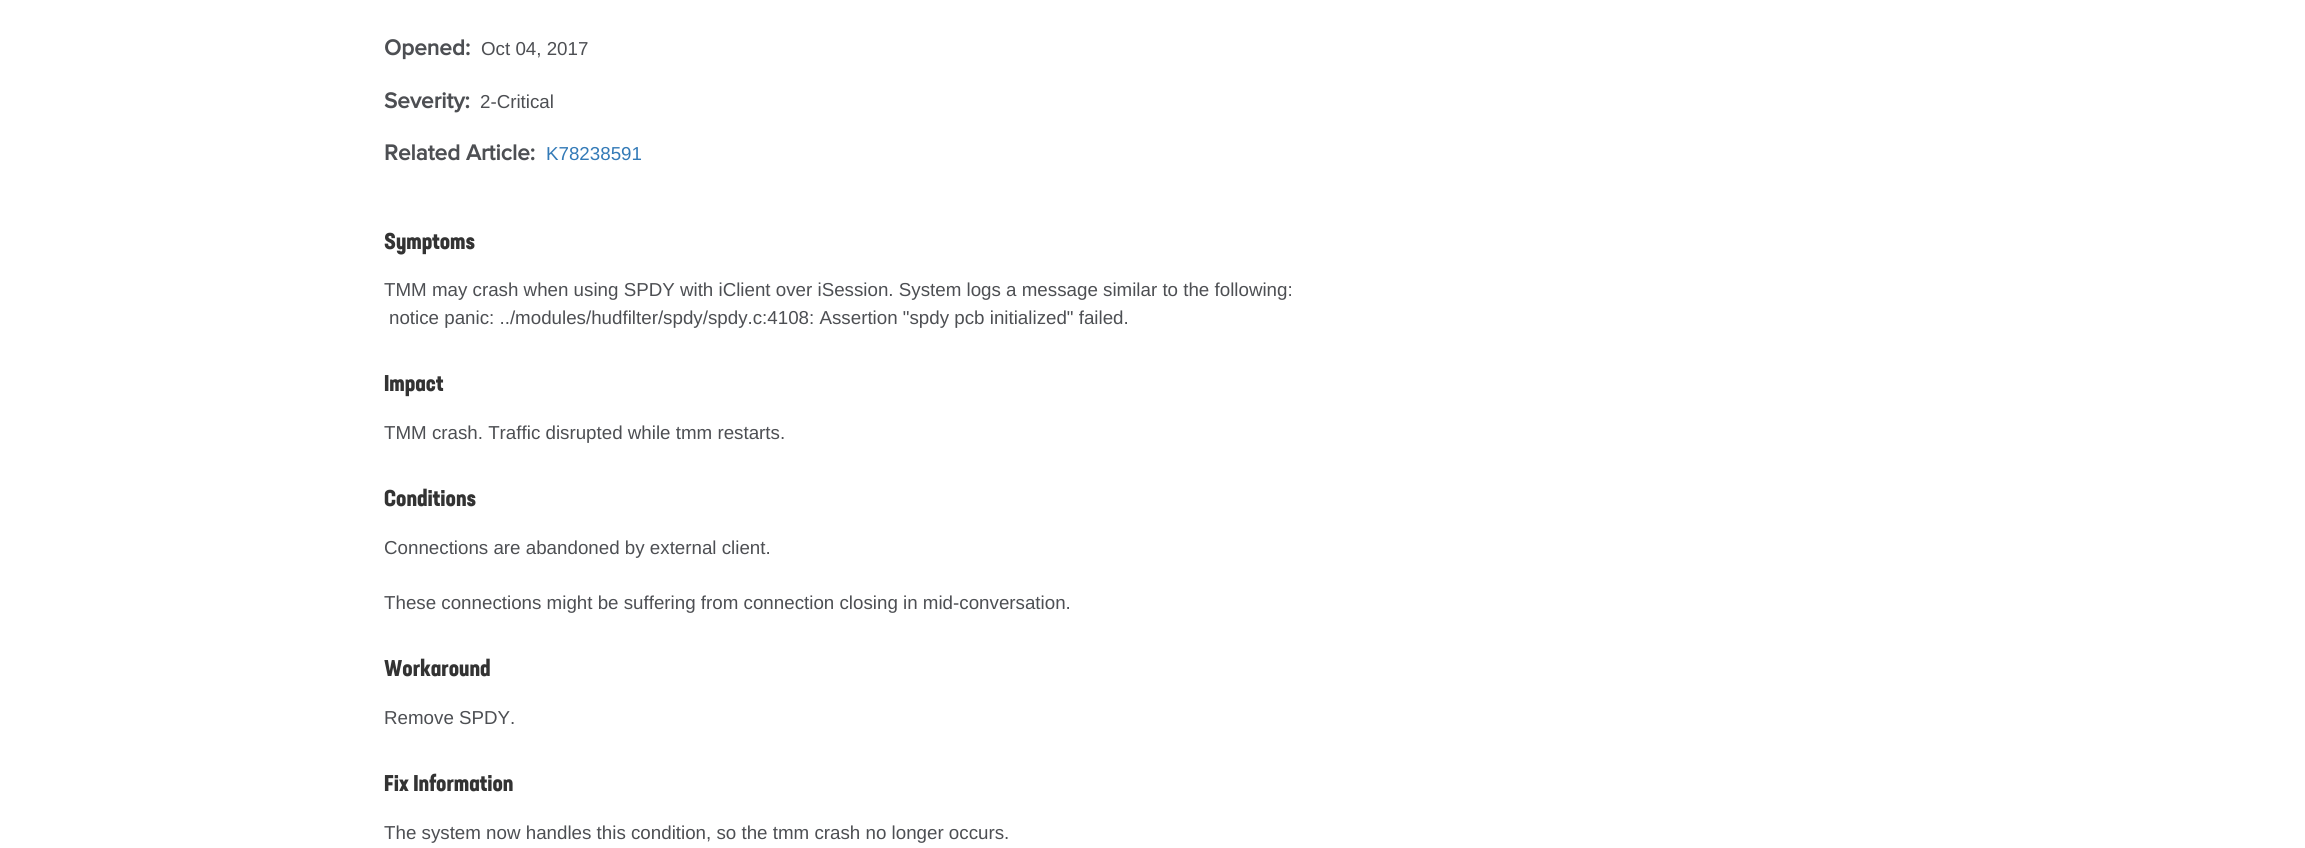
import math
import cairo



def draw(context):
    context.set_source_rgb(1, 1, 1)
    context.paint()
    context.select_font_face("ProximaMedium", cairo.FontSlant.NORMAL, cairo.FontWeight.BOLD)
    context.set_font_size(22.5)
    context.set_source_rgb(77 / 255, 79 / 255, 83 / 255)
    context.move_to(384, 55)
    context.show_text("Opened:")
    context.select_font_face("Liberation Sans")
    context.set_font_size(18.75)
    context.move_to(481, 55)
    context.show_text("Oct 04, 2017")
    context.select_font_face("ProximaMedium", cairo.FontSlant.NORMAL, cairo.FontWeight.BOLD)
    context.set_font_size(22.5)
    context.move_to(384, 108)
    context.show_text("Severity:")
    context.select_font_face("Liberation Sans")
    context.set_font_size(18.75)
    context.move_to(480, 108)
    context.show_text("2-Critical")
    context.select_font_face("ProximaMedium", cairo.FontSlant.NORMAL, cairo.FontWeight.BOLD)
    context.set_font_size(22.5)
    context.move_to(384, 160)
    context.show_text("Related Article:")
    context.select_font_face("Liberation Sans")
    context.set_font_size(18.75)
    context.set_source_rgb(51 / 255, 122 / 255, 183 / 255)
    context.move_to(546, 160)
    context.show_text("K78238591")
    context.select_font_face("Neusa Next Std", cairo.FontSlant.NORMAL, cairo.FontWeight.BOLD)
    context.set_font_size(22.5)
    context.set_source_rgb(51 / 255, 51 / 255, 51 / 255)
    context.move_to(384, 249)
    context.show_text("Symptoms")
    context.select_font_face("Liberation Sans")
    context.set_font_size(18.75)
    context.set_source_rgb(77 / 255, 79 / 255, 83 / 255)
    context.move_to(384, 296)
    context.show_text("TMM may crash when using SPDY with iClient over iSession. System logs a message similar to the following:")
    context.move_to(389, 324)
    context.show_text("notice panic: ../modules/hudfilter/spdy/spdy.c:4108: Assertion \"spdy pcb initialized\" failed.")
    context.select_font_face("Neusa Next Std", cairo.FontSlant.NORMAL, cairo.FontWeight.BOLD)
    context.set_font_size(22.5)
    context.set_source_rgb(51 / 255, 51 / 255, 51 / 255)
    context.move_to(384, 391)
    context.show_text("Impact")
    context.select_font_face("Liberation Sans")
    context.set_font_size(18.75)
    context.set_source_rgb(77 / 255, 79 / 255, 83 / 255)
    context.move_to(384, 439)
    context.show_text("TMM crash. Traffic disrupted while tmm restarts.")
    context.select_font_face("Neusa Next Std", cairo.FontSlant.NORMAL, cairo.FontWeight.BOLD)
    context.set_font_size(22.5)
    context.set_source_rgb(51 / 255, 51 / 255, 51 / 255)
    context.move_to(384, 506)
    context.show_text("Conditions")
    context.select_font_face("Liberation Sans")
    context.set_font_size(18.75)
    context.set_source_rgb(77 / 255, 79 / 255, 83 / 255)
    context.move_to(384, 554)
    context.show_text("Connections are abandoned by external client.")
    context.move_to(384, 609)
    context.show_text("These connections might be suffering from connection closing in mid-conversation.")
    context.select_font_face("Neusa Next Std", cairo.FontSlant.NORMAL, cairo.FontWeight.BOLD)
    context.set_font_size(22.5)
    context.set_source_rgb(51 / 255, 51 / 255, 51 / 255)
    context.move_to(384, 676)
    context.show_text("Workaround")
    context.select_font_face("Liberation Sans")
    context.set_font_size(18.75)
    context.set_source_rgb(77 / 255, 79 / 255, 83 / 255)
    context.move_to(384, 724)
    context.show_text("Remove SPDY.")
    context.select_font_face("Neusa Next Std", cairo.FontSlant.NORMAL, cairo.FontWeight.BOLD)
    context.set_font_size(22.5)
    context.set_source_rgb(51 / 255, 51 / 255, 51 / 255)
    context.move_to(384, 791)
    context.show_text("Fix Information")
    context.select_font_face("Liberation Sans")
    context.set_font_size(18.75)
    context.set_source_rgb(77 / 255, 79 / 255, 83 / 255)
    context.move_to(384, 839)
    context.show_text("The system now handles this condition, so the tmm crash no longer occurs.")


surface = cairo.ImageSurface(cairo.Format.RGB24, 2305, 848)
context = cairo.Context(surface)
options = cairo.FontOptions()
options.set_hint_metrics(cairo.HintMetrics.OFF)
options.set_hint_style(cairo.HintStyle.NONE)
context.set_font_options(options)
context.set_miter_limit(4)
draw(context)
surface.write_to_png("out.png")
